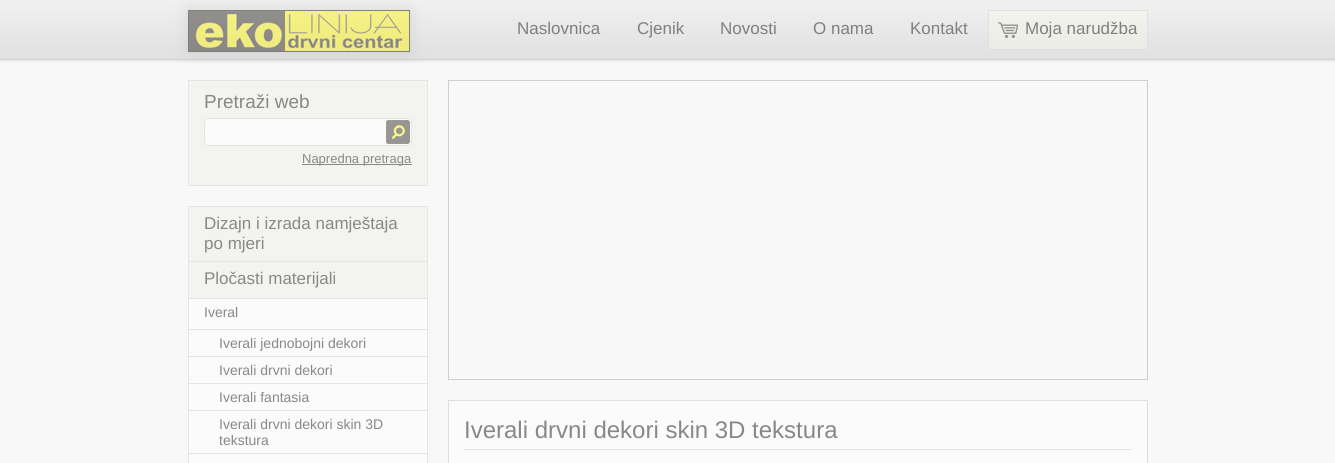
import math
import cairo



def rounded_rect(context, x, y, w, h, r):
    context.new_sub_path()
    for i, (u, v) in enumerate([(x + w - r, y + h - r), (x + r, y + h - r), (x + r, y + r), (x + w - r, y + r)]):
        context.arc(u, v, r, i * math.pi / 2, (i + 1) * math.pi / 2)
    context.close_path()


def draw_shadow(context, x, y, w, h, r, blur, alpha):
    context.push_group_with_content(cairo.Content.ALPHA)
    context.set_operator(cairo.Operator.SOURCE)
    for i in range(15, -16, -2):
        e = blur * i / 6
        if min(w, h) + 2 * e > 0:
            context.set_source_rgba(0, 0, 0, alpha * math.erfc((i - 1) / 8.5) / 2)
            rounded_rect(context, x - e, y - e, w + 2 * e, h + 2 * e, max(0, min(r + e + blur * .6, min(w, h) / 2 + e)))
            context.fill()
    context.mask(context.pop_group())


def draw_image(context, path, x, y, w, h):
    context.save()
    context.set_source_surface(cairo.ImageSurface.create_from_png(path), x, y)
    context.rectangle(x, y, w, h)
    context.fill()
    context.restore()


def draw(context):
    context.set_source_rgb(248 / 255, 248 / 255, 248 / 255)
    context.paint()
    draw_image(context, "images/1.png", 0, 0, 1335, 63)
    context.save()
    context.set_fill_rule(cairo.FillRule.EVEN_ODD)
    context.new_path()
    context.move_to(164, 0)
    context.line_to(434, 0)
    context.line_to(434, 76)
    context.line_to(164, 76)
    context.close_path()
    context.move_to(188, 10)
    context.line_to(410, 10)
    context.line_to(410, 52)
    context.line_to(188, 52)
    context.close_path()
    context.clip()
    context.set_source_rgb(187 / 255, 187 / 255, 187 / 255)
    draw_shadow(context, 188, 10, 222, 42, 0, 7.5, 0.45)
    context.restore()
    context.rectangle(188.5, 10.5, 221, 41)
    context.set_source_rgba(0, 0, 0, 0.45)
    context.set_line_width(1)
    context.stroke()
    draw_image(context, "images/2.png", 189, 11, 220, 40)
    context.set_source_rgba(249 / 255, 248 / 255, 235 / 255, 0.45)
    context.rectangle(988, 10, 160, 40)
    context.fill()
    context.rectangle(988.5, 10.5, 159, 39)
    context.set_source_rgba(205 / 255, 205 / 255, 205 / 255, 0.45)
    context.stroke()
    draw_image(context, "images/3.png", 998, 22, 20, 16)
    context.set_source_rgb(243 / 255, 243 / 255, 239 / 255)
    context.rectangle(188.5, 80.5, 239, 105)
    context.fill_preserve()
    context.set_source_rgb(229 / 255, 229 / 255, 229 / 255)
    context.stroke()
    context.set_source_rgb(251 / 255, 251 / 255, 251 / 255)
    rounded_rect(context, 204.5, 118.5, 207, 27, 2.5)
    context.fill_preserve()
    context.set_source_rgb(229 / 255, 229 / 255, 229 / 255)
    context.stroke()
    draw_image(context, "images/4.png", 386, 120, 24, 24)
    context.set_source_rgb(136 / 255, 136 / 255, 136 / 255)
    context.rectangle(302, 164, 110, 1)
    context.fill()
    context.set_source_rgb(243 / 255, 243 / 255, 239 / 255)
    context.rectangle(188.5, 206.5, 239, 55)
    context.fill_preserve()
    context.set_source_rgb(229 / 255, 229 / 255, 229 / 255)
    context.stroke()
    context.set_source_rgb(243 / 255, 243 / 255, 239 / 255)
    context.rectangle(189, 262, 238, 36)
    context.fill()
    context.rectangle(188.5, 261.5, 239, 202)
    context.set_source_rgb(229 / 255, 229 / 255, 229 / 255)
    context.stroke()
    context.set_source_rgb(251 / 255, 251 / 255, 251 / 255)
    context.rectangle(189, 299, 238, 30)
    context.fill()
    context.rectangle(188.5, 298.5, 239, 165)
    context.set_source_rgb(229 / 255, 229 / 255, 229 / 255)
    context.stroke()
    context.set_source_rgb(251 / 255, 251 / 255, 251 / 255)
    context.rectangle(188.5, 329.5, 239, 27)
    context.fill_preserve()
    context.set_source_rgb(229 / 255, 229 / 255, 229 / 255)
    context.stroke()
    context.set_source_rgb(251 / 255, 251 / 255, 251 / 255)
    context.rectangle(188.5, 356.5, 239, 27)
    context.fill_preserve()
    context.set_source_rgb(229 / 255, 229 / 255, 229 / 255)
    context.stroke()
    context.set_source_rgb(251 / 255, 251 / 255, 251 / 255)
    context.rectangle(188.5, 383.5, 239, 27)
    context.fill_preserve()
    context.set_source_rgb(229 / 255, 229 / 255, 229 / 255)
    context.stroke()
    context.set_source_rgb(251 / 255, 251 / 255, 251 / 255)
    context.rectangle(188.5, 410.5, 239, 43)
    context.fill_preserve()
    context.set_source_rgb(229 / 255, 229 / 255, 229 / 255)
    context.stroke()
    context.set_source_rgb(251 / 255, 251 / 255, 251 / 255)
    context.rectangle(189, 454, 238, 9)
    context.fill()
    context.rectangle(448.5, 80.5, 699, 299)
    context.set_source_rgb(207 / 255, 207 / 255, 207 / 255)
    context.stroke()
    context.set_source_rgb(251 / 255, 251 / 255, 251 / 255)
    context.rectangle(448.5, 400.5, 699, 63)
    context.fill_preserve()
    context.set_source_rgb(222 / 255, 222 / 255, 222 / 255)
    context.stroke()
    context.set_source_rgb(229 / 255, 229 / 255, 229 / 255)
    context.rectangle(464, 449, 668, 1)
    context.fill()
    context.select_font_face("Liberation Sans")
    context.set_font_size(17)
    context.set_source_rgb(127 / 255, 127 / 255, 127 / 255)
    context.move_to(517, 34)
    context.show_text("Naslovnica")
    context.move_to(637, 34)
    context.show_text("Cjenik")
    context.move_to(720, 34)
    context.show_text("Novosti")
    context.move_to(813, 34)
    context.show_text("O nama")
    context.move_to(910, 34)
    context.show_text("Kontakt")
    context.move_to(1025, 34)
    context.show_text("Moja narudžba")
    context.set_font_size(19)
    context.set_source_rgb(136 / 255, 136 / 255, 136 / 255)
    context.move_to(204, 108)
    context.show_text("Pretraži web")
    context.set_font_size(13)
    context.move_to(302, 163)
    context.show_text("Napredna pretraga")
    context.set_font_size(17)
    context.move_to(204, 229)
    context.show_text("Dizajn i izrada namještaja")
    context.move_to(204, 249)
    context.show_text("po mjeri")
    context.move_to(204, 284)
    context.show_text("Pločasti materijali")
    context.set_font_size(14)
    context.move_to(204, 317)
    context.show_text("Iveral")
    context.move_to(219, 348)
    context.show_text("Iverali jednobojni dekori")
    context.move_to(219, 375)
    context.show_text("Iverali drvni dekori")
    context.move_to(219, 402)
    context.show_text("Iverali fantasia")
    context.move_to(219, 429)
    context.show_text("Iverali drvni dekori skin 3D")
    context.move_to(219, 445)
    context.show_text("tekstura")
    context.set_font_size(24)
    context.move_to(464, 438)
    context.show_text("Iverali drvni dekori skin 3D tekstura")


surface = cairo.ImageSurface(cairo.Format.RGB24, 1335, 463)
context = cairo.Context(surface)
options = cairo.FontOptions()
options.set_hint_metrics(cairo.HintMetrics.OFF)
options.set_hint_style(cairo.HintStyle.NONE)
context.set_font_options(options)
context.set_miter_limit(4)
draw(context)
surface.write_to_png("out.png")
